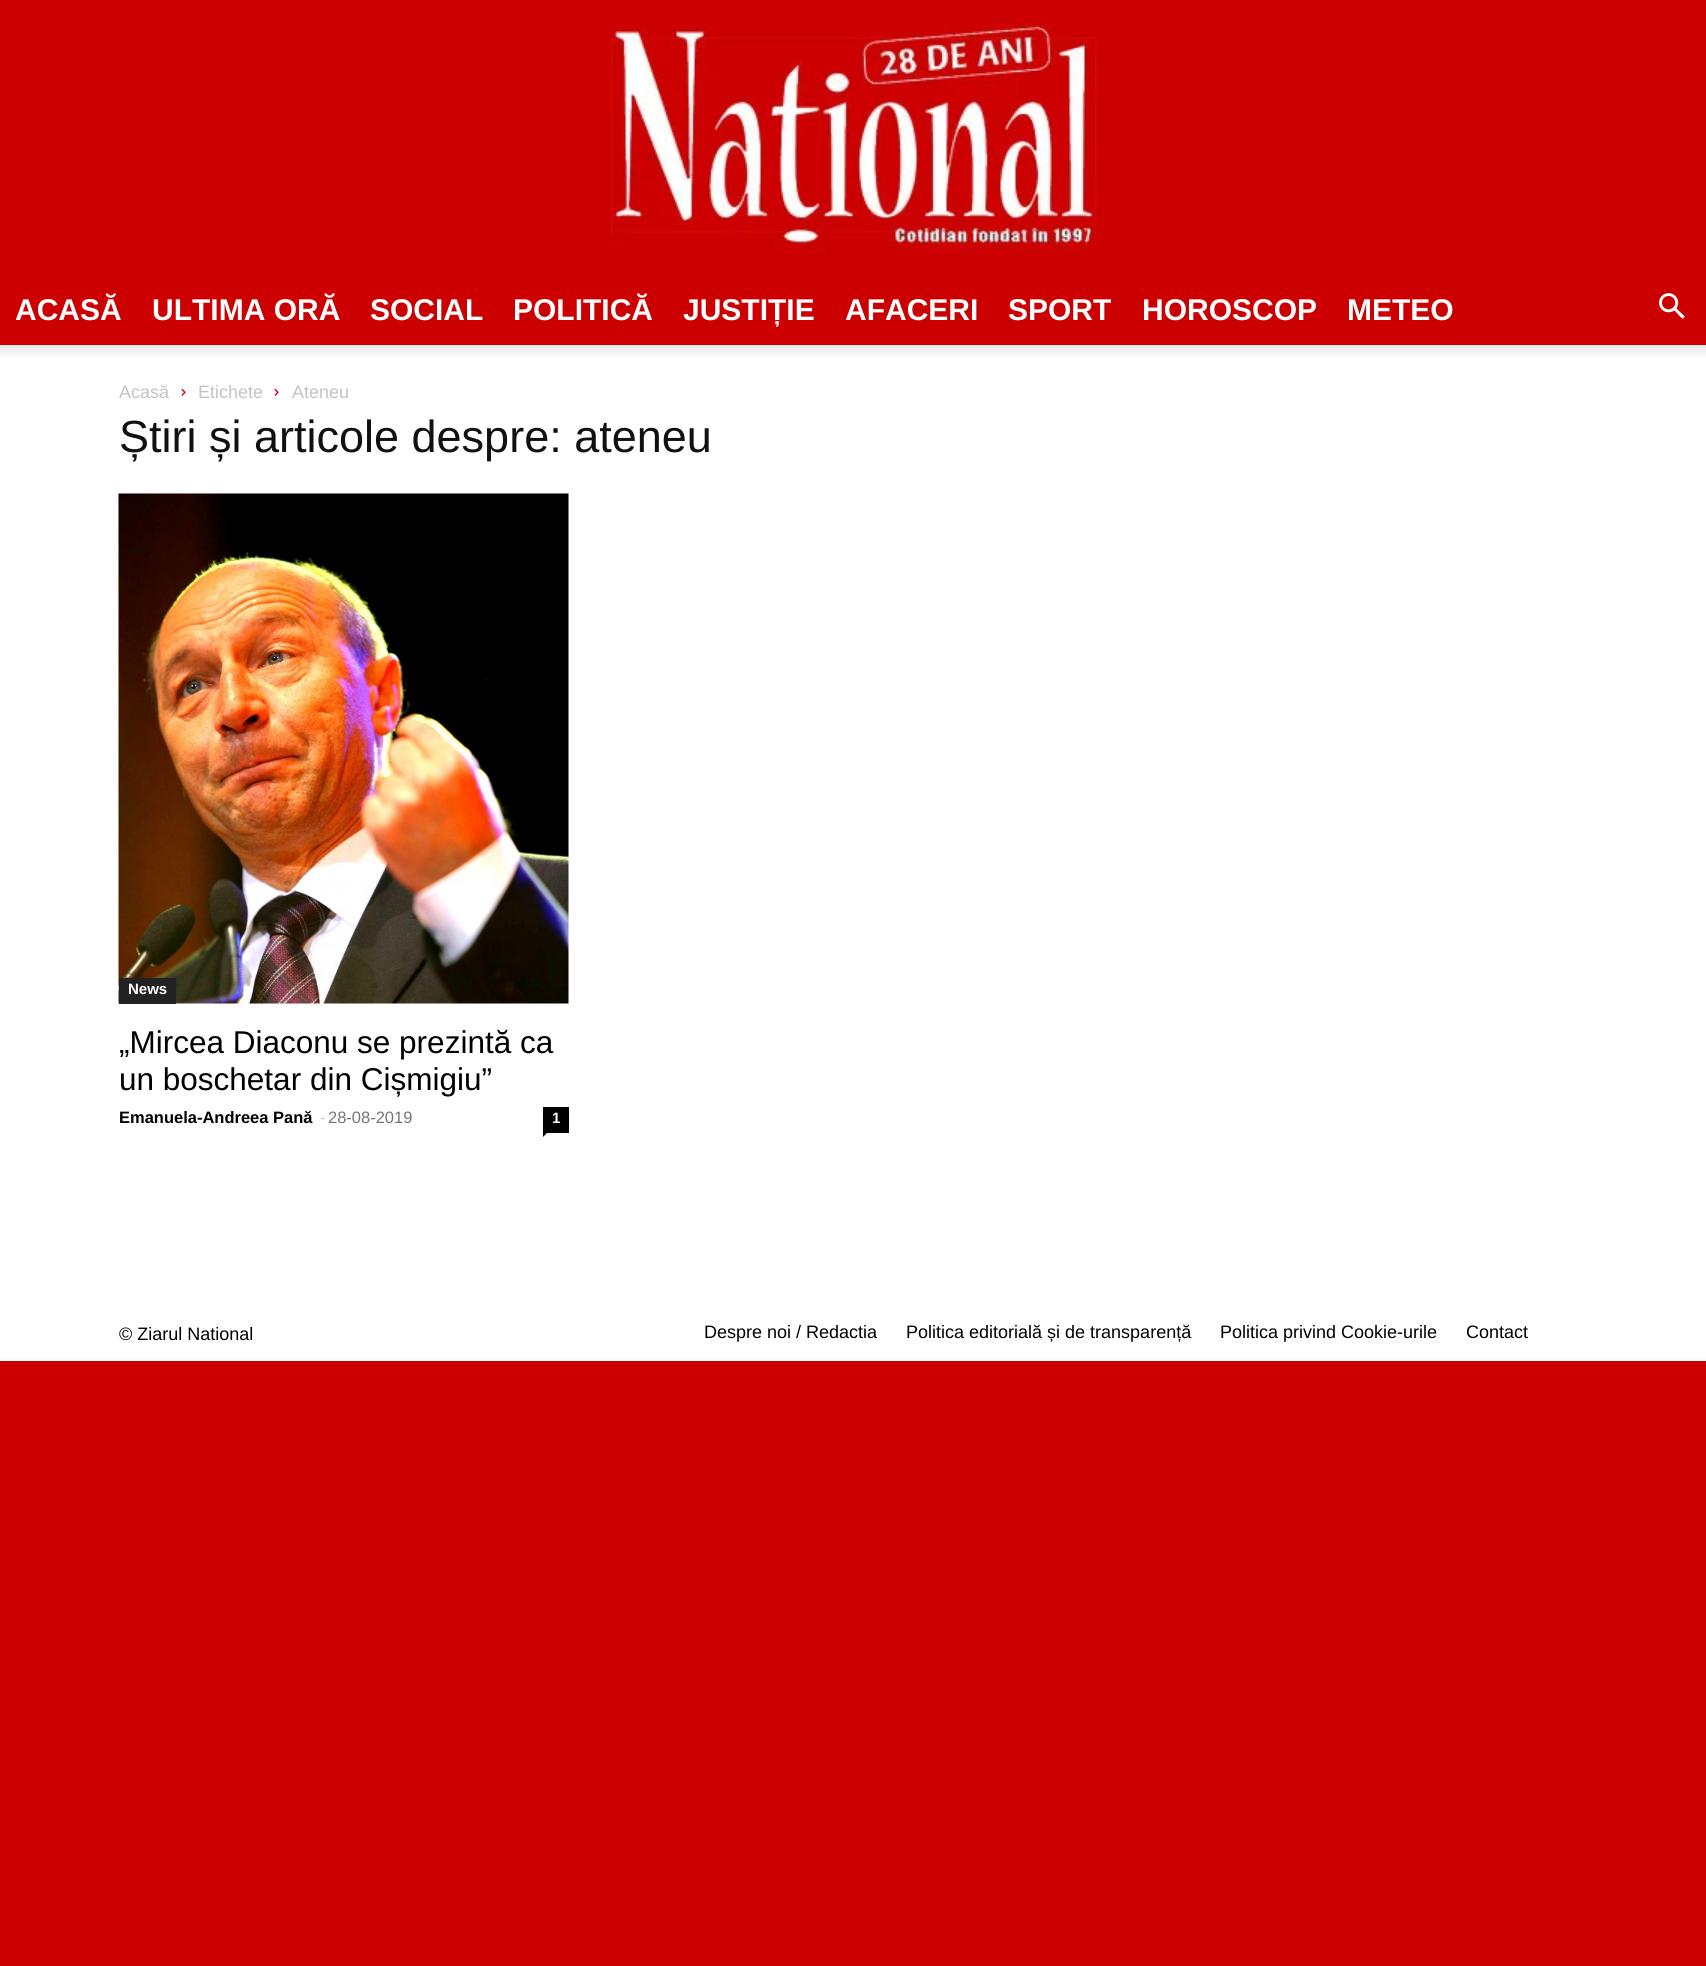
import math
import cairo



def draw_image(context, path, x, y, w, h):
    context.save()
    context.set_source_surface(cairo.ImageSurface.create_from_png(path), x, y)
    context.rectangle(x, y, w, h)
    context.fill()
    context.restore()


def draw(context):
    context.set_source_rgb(204 / 255, 0, 0)
    context.paint()
    draw_image(context, "images/1.png", 610, 23, 487, 230)
    draw_image(context, "images/2.png", 1659, 293, 26, 26)
    context.set_source_rgb(1, 1, 1)
    context.rectangle(0, 345, 1706, 1016)
    context.fill()
    draw_image(context, "images/3.png", 0, 345, 1706, 13)
    draw_image(context, "images/4.png", 181, 388, 5, 8)
    draw_image(context, "images/4.png", 274, 388, 5, 8)
    draw_image(context, "images/5.png", 118, 493, 451, 511)
    context.set_source_rgb(34 / 255, 34 / 255, 34 / 255)
    context.rectangle(119, 978, 57, 26)
    context.fill()
    context.set_source_rgb(0, 0, 0)
    context.rectangle(543, 1107, 26, 26)
    context.fill()
    context.new_path()
    context.move_to(543, 1132.5)
    context.line_to(547.5, 1132.5)
    context.line_to(543, 1137)
    context.close_path()
    context.fill()
    context.select_font_face("Liberation Sans", cairo.FontSlant.NORMAL, cairo.FontWeight.BOLD)
    context.set_font_size(30)
    context.set_source_rgb(1, 1, 1)
    context.move_to(15, 320)
    context.show_text("ACASĂ")
    context.move_to(152, 320)
    context.show_text("ULTIMA ORĂ")
    context.move_to(370, 320)
    context.show_text("SOCIAL")
    context.move_to(513, 320)
    context.show_text("POLITICĂ")
    context.move_to(683, 320)
    context.show_text("JUSTIȚIE")
    context.move_to(845, 320)
    context.show_text("AFACERI")
    context.move_to(1008, 320)
    context.show_text("SPORT")
    context.move_to(1142, 320)
    context.show_text("HOROSCOP")
    context.move_to(1347, 320)
    context.show_text("METEO")
    context.select_font_face("Liberation Sans")
    context.set_font_size(18)
    context.set_source_rgb(195 / 255, 195 / 255, 195 / 255)
    context.move_to(119, 398)
    context.show_text("Acasă")
    context.move_to(198, 398)
    context.show_text("Etichete")
    context.move_to(292, 398)
    context.show_text("Ateneu")
    context.set_font_size(45)
    context.set_source_rgb(17 / 255, 17 / 255, 17 / 255)
    context.move_to(119, 452)
    context.show_text("Știri și articole despre: ateneu")
    context.select_font_face("Liberation Sans", cairo.FontSlant.NORMAL, cairo.FontWeight.BOLD)
    context.set_font_size(15)
    context.set_source_rgb(1, 1, 1)
    context.move_to(128, 994)
    context.show_text("News")
    context.select_font_face("Liberation Sans")
    context.set_font_size(31.5)
    context.set_source_rgb(0, 0, 0)
    context.move_to(119, 1053)
    context.show_text("„Mircea Diaconu se prezintă ca")
    context.move_to(119, 1090)
    context.show_text("un boschetar din Cișmigiu”")
    context.select_font_face("Liberation Sans", cairo.FontSlant.NORMAL, cairo.FontWeight.BOLD)
    context.set_font_size(16.5)
    context.move_to(119, 1123)
    context.show_text("Emanuela-Andreea Pană")
    context.select_font_face("Liberation Sans")
    context.set_source_rgb(204 / 255, 204 / 255, 204 / 255)
    context.move_to(320, 1123)
    context.show_text("-")
    context.set_source_rgb(118 / 255, 118 / 255, 118 / 255)
    context.move_to(328, 1123)
    context.show_text("28-08-2019")
    context.select_font_face("Liberation Sans", cairo.FontSlant.NORMAL, cairo.FontWeight.BOLD)
    context.set_font_size(15)
    context.set_source_rgb(1, 1, 1)
    context.move_to(552, 1123)
    context.show_text("1")
    context.select_font_face("Liberation Sans")
    context.set_font_size(18)
    context.set_source_rgb(0, 0, 0)
    context.move_to(119, 1340)
    context.show_text("© Ziarul National")
    context.move_to(704, 1338)
    context.show_text("Despre noi / Redactia")
    context.move_to(906, 1338)
    context.show_text("Politica editorială și de transparență")
    context.move_to(1220, 1338)
    context.show_text("Politica privind Cookie-urile")
    context.move_to(1466, 1338)
    context.show_text("Contact")


surface = cairo.ImageSurface(cairo.Format.RGB24, 1706, 1966)
context = cairo.Context(surface)
options = cairo.FontOptions()
options.set_hint_metrics(cairo.HintMetrics.OFF)
options.set_hint_style(cairo.HintStyle.NONE)
context.set_font_options(options)
context.set_miter_limit(4)
draw(context)
surface.write_to_png("out.png")
